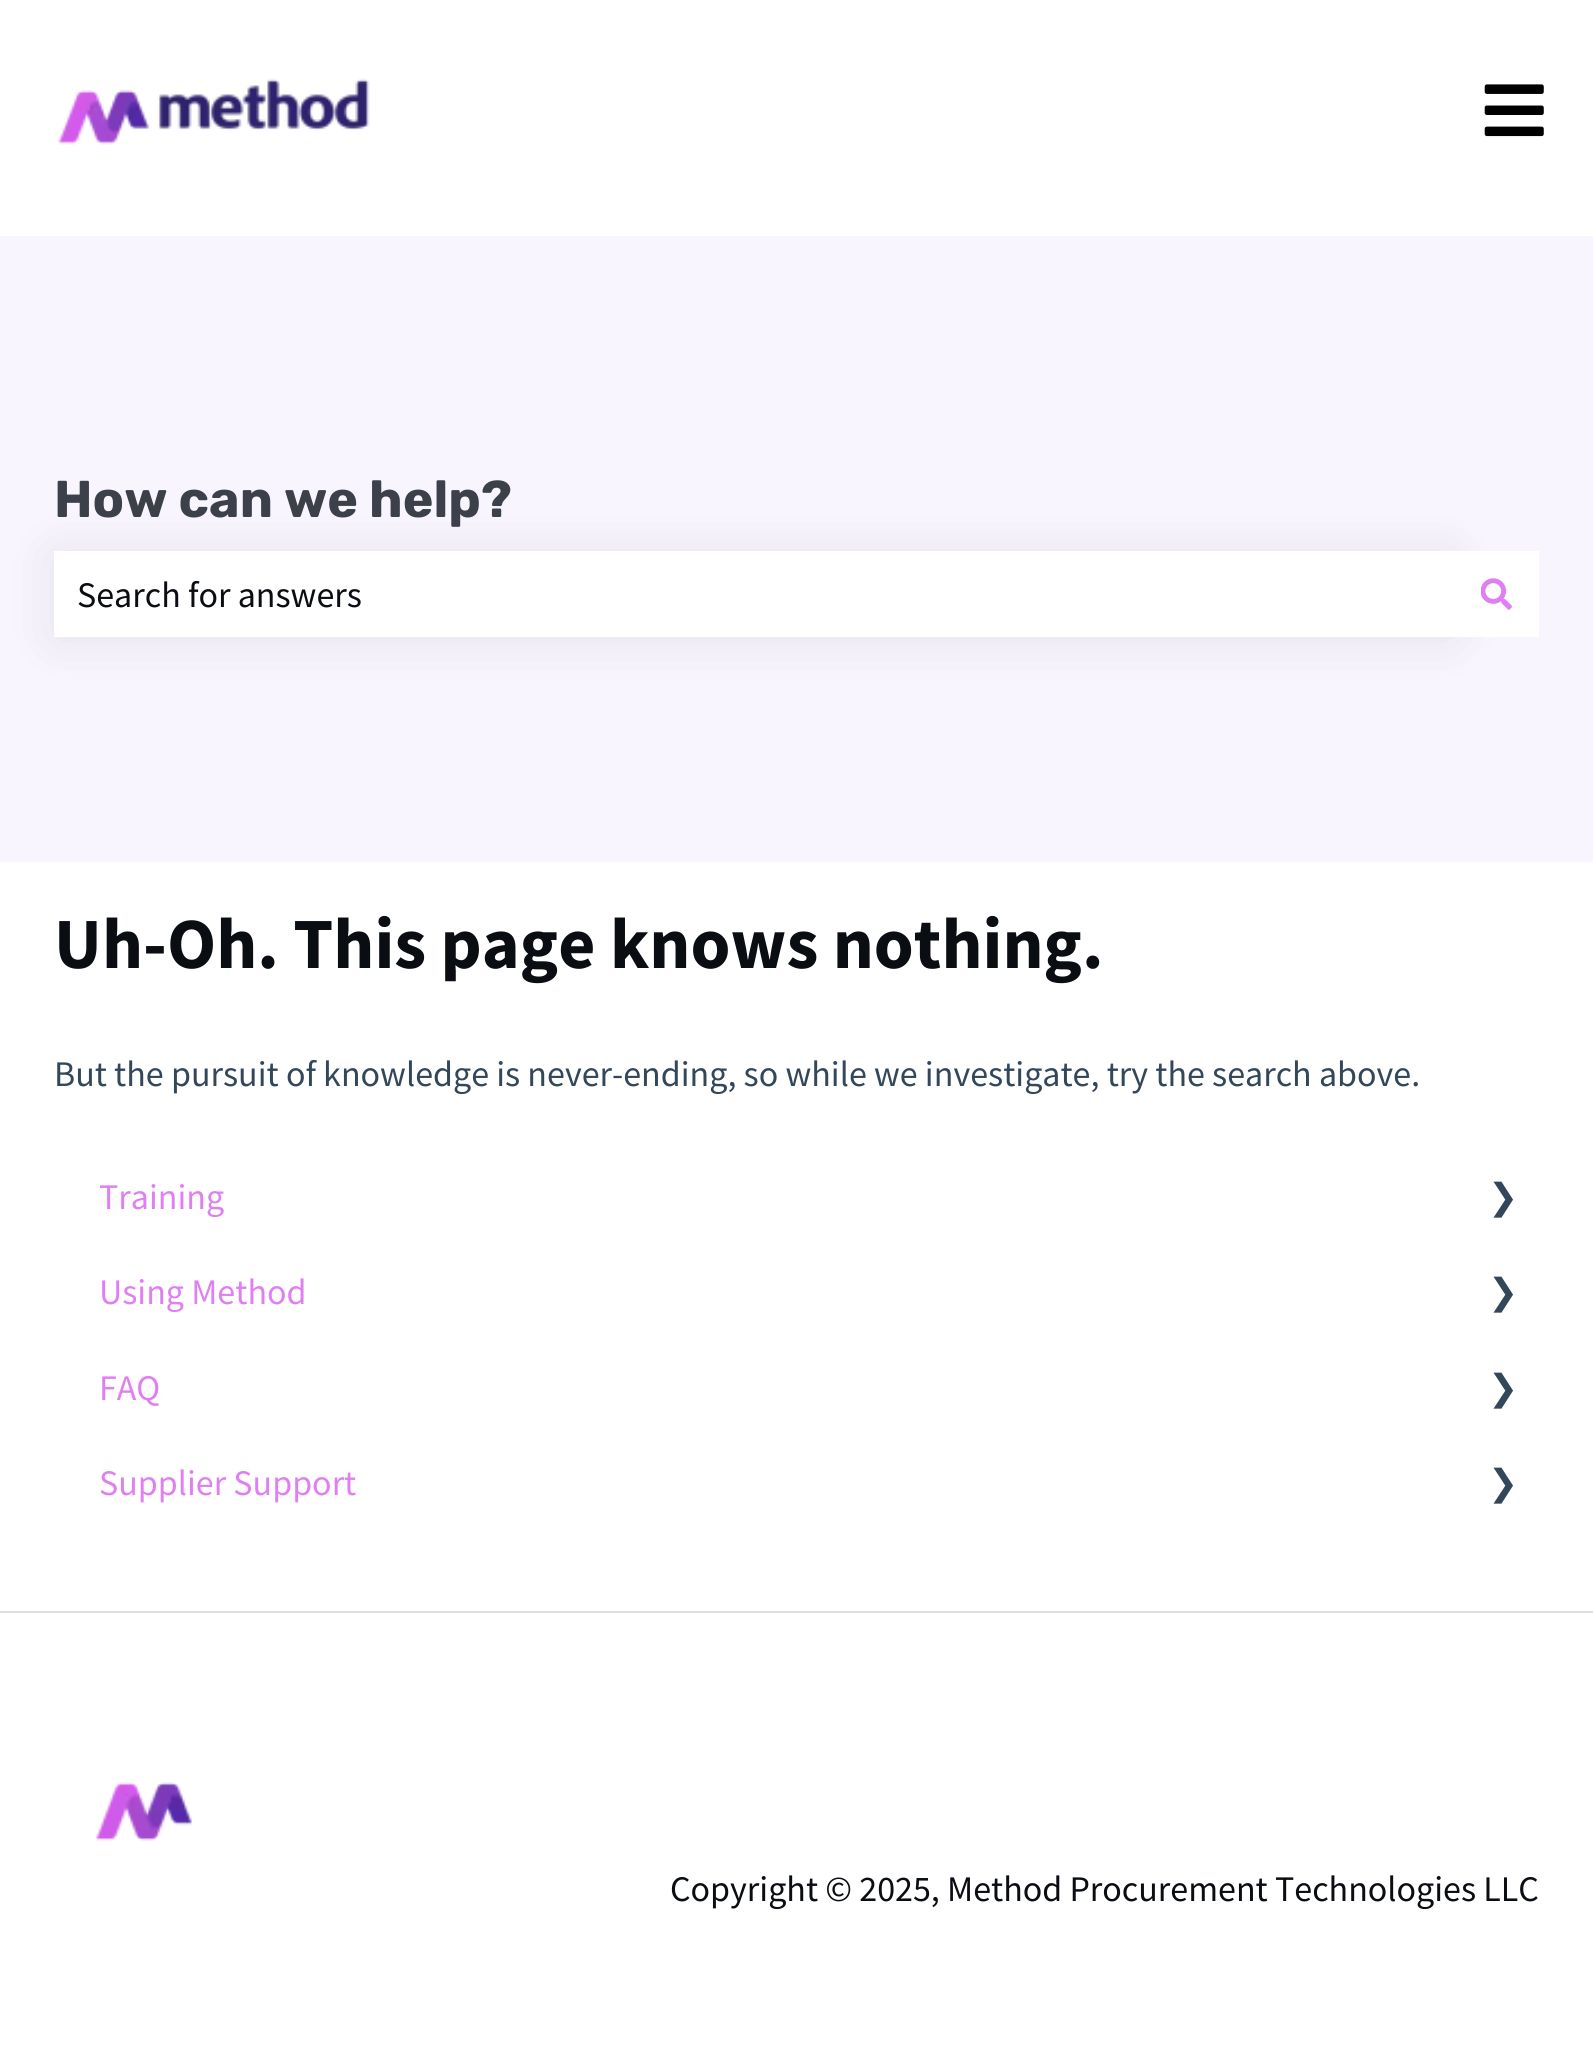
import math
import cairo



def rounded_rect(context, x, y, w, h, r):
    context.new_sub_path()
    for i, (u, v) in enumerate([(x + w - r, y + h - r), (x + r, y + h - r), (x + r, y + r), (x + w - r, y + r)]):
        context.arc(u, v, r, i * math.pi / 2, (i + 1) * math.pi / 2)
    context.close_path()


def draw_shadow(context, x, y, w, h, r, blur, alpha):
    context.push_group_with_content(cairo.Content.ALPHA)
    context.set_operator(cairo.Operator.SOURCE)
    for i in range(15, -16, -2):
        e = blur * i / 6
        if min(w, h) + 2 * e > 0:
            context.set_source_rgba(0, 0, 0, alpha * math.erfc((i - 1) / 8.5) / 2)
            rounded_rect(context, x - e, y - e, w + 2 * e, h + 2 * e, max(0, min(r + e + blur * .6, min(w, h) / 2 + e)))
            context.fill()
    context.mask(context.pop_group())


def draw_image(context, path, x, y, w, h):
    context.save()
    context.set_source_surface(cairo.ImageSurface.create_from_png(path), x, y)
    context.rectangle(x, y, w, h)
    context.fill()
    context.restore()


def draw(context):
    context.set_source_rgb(1, 1, 1)
    context.paint()
    draw_image(context, "images/1.png", 58, 78, 312, 67)
    draw_image(context, "images/2.png", 1484, 84, 60, 53)
    context.set_source_rgb(249 / 255, 245 / 255, 1)
    context.rectangle(0, 236, 1593, 626)
    context.fill()
    context.set_source_rgb(0, 0, 0)
    draw_shadow(context, 54, 554, 1400, 85, 0, 27, 0.08)
    context.set_source_rgb(1, 1, 1)
    context.rectangle(54, 551, 1485, 86)
    context.fill()
    draw_image(context, "images/3.png", 1481, 578, 31, 32)
    context.set_source_rgb(224 / 255, 224 / 255, 224 / 255)
    context.rectangle(0, 1611, 1593, 2)
    context.fill()
    draw_image(context, "images/4.png", 96, 1782, 96, 60)
    context.select_font_face("Rubik", cairo.FontSlant.NORMAL, cairo.FontWeight.BOLD)
    context.set_font_size(51.75)
    context.set_source_rgb(60 / 255, 64 / 255, 75 / 255)
    context.move_to(54, 517)
    context.show_text("How can we help?")
    context.select_font_face("Source Sans Pro")
    context.set_font_size(36)
    context.set_source_rgb(10 / 255, 13 / 255, 18 / 255)
    context.move_to(77, 607)
    context.show_text("Search for answers")
    context.select_font_face("Source Sans Pro", cairo.FontSlant.NORMAL, cairo.FontWeight.BOLD)
    context.set_font_size(72)
    context.move_to(54, 968)
    context.show_text("Uh-Oh. This page knows nothing.")
    context.select_font_face("Source Sans Pro")
    context.set_font_size(36)
    context.set_source_rgb(51 / 255, 71 / 255, 91 / 255)
    context.move_to(54, 1086)
    context.show_text("But the pursuit of knowledge is never-ending, so while we investigate, try the search above.")
    context.set_source_rgb(224 / 255, 127 / 255, 242 / 255)
    context.move_to(99, 1209)
    context.show_text("Training")
    context.select_font_face("DejaVu Sans")
    context.set_source_rgb(51 / 255, 71 / 255, 91 / 255)
    context.move_to(1488, 1209)
    context.show_text("❯")
    context.select_font_face("Source Sans Pro")
    context.set_source_rgb(224 / 255, 127 / 255, 242 / 255)
    context.move_to(99, 1304)
    context.show_text("Using Method")
    context.select_font_face("DejaVu Sans")
    context.set_source_rgb(51 / 255, 71 / 255, 91 / 255)
    context.move_to(1488, 1304)
    context.show_text("❯")
    context.select_font_face("Source Sans Pro")
    context.set_source_rgb(224 / 255, 127 / 255, 242 / 255)
    context.move_to(99, 1400)
    context.show_text("FAQ")
    context.select_font_face("DejaVu Sans")
    context.set_source_rgb(51 / 255, 71 / 255, 91 / 255)
    context.move_to(1488, 1400)
    context.show_text("❯")
    context.select_font_face("Source Sans Pro")
    context.set_source_rgb(224 / 255, 127 / 255, 242 / 255)
    context.move_to(99, 1495)
    context.show_text("Supplier Support")
    context.select_font_face("DejaVu Sans")
    context.set_source_rgb(51 / 255, 71 / 255, 91 / 255)
    context.move_to(1488, 1495)
    context.show_text("❯")
    context.select_font_face("Source Sans Pro")
    context.set_source_rgb(10 / 255, 13 / 255, 18 / 255)
    context.move_to(670, 1901)
    context.show_text("Copyright © 2025, Method Procurement Technologies LLC")


surface = cairo.ImageSurface(cairo.Format.RGB24, 1593, 2061)
context = cairo.Context(surface)
options = cairo.FontOptions()
options.set_hint_metrics(cairo.HintMetrics.OFF)
options.set_hint_style(cairo.HintStyle.NONE)
context.set_font_options(options)
context.set_miter_limit(4)
draw(context)
surface.write_to_png("out.png")
